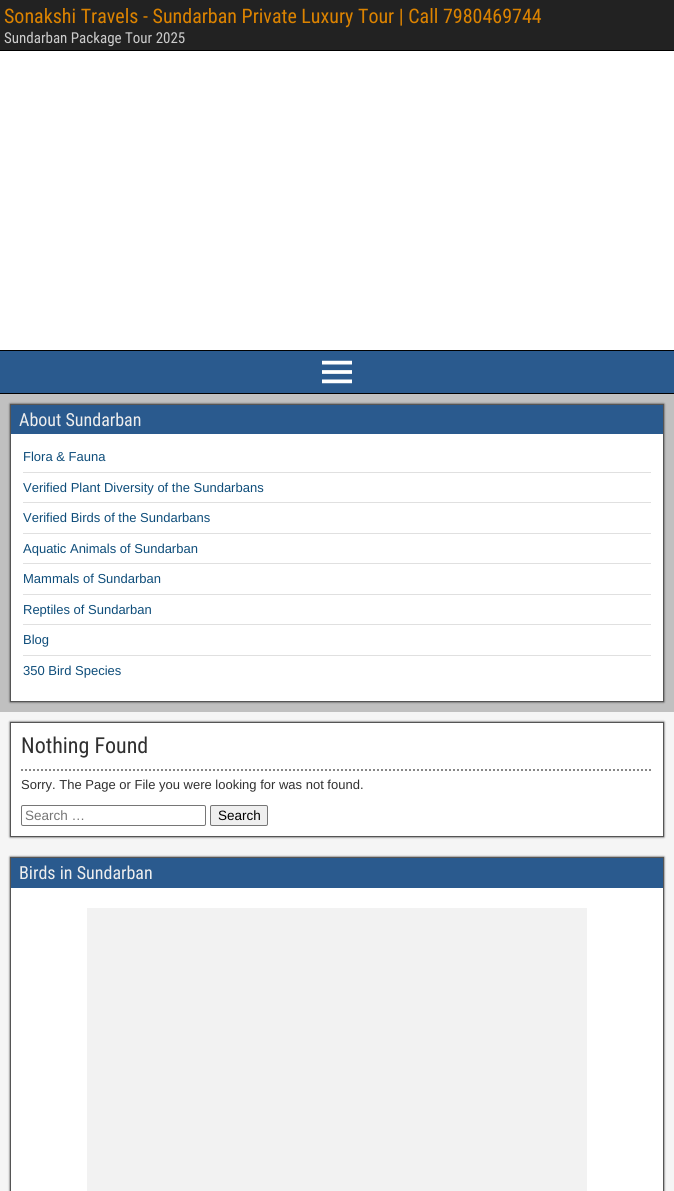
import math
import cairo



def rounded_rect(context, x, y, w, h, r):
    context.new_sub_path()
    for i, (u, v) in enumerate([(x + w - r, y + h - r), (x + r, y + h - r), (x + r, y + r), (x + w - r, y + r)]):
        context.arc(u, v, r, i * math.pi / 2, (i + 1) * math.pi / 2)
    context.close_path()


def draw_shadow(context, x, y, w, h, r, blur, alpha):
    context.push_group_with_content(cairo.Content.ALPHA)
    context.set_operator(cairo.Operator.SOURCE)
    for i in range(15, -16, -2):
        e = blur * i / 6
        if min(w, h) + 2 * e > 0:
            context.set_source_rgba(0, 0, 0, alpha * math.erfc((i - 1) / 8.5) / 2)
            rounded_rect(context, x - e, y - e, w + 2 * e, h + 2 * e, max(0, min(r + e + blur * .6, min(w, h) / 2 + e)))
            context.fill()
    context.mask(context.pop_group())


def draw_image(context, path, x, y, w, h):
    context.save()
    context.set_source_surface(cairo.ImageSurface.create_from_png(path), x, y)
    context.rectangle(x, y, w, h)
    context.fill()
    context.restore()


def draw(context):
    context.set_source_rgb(1, 1, 1)
    context.paint()
    context.set_source_rgb(34 / 255, 34 / 255, 34 / 255)
    context.rectangle(0, 0, 674, 50)
    context.fill()
    context.set_source_rgb(0, 0, 0)
    context.rectangle(0, 50, 674, 1)
    context.fill()
    context.rectangle(0, 350, 674, 1)
    context.fill()
    context.set_source_rgb(42 / 255, 90 / 255, 142 / 255)
    context.rectangle(0, 351, 674, 42)
    context.fill()
    context.set_source_rgb(0, 0, 0)
    context.rectangle(0, 393, 674, 1)
    context.fill()
    draw_image(context, "images/1.png", 322, 360, 30, 24)
    context.set_source_rgb(192 / 255, 192 / 255, 192 / 255)
    context.rectangle(0, 394, 674, 318)
    context.fill()
    context.set_source_rgb(51 / 255, 51 / 255, 51 / 255)
    draw_shadow(context, 10, 404, 654, 298, 0, 1, 1)
    context.set_source_rgb(1, 1, 1)
    context.rectangle(11, 434, 652, 267)
    context.fill()
    context.rectangle(10.5, 404.5, 653, 297)
    context.set_source_rgb(85 / 255, 85 / 255, 85 / 255)
    context.set_line_width(1)
    context.stroke()
    context.set_source_rgb(42 / 255, 90 / 255, 142 / 255)
    context.rectangle(11, 405, 652, 29)
    context.fill()
    context.set_source_rgb(224 / 255, 224 / 255, 224 / 255)
    context.rectangle(23, 472, 628, 1)
    context.fill()
    context.rectangle(23, 502, 628, 1)
    context.fill()
    context.rectangle(23, 533, 628, 1)
    context.fill()
    context.rectangle(23, 563, 628, 1)
    context.fill()
    context.rectangle(23, 594, 628, 1)
    context.fill()
    context.rectangle(23, 624, 628, 1)
    context.fill()
    context.rectangle(23, 655, 628, 1)
    context.fill()
    context.set_source_rgb(245 / 255, 245 / 255, 245 / 255)
    context.rectangle(0, 712, 674, 479)
    context.fill()
    context.set_source_rgb(51 / 255, 51 / 255, 51 / 255)
    draw_shadow(context, 10, 722, 654, 115, 0, 1, 1)
    context.set_source_rgb(1, 1, 1)
    context.rectangle(10.5, 722.5, 653, 114)
    context.fill_preserve()
    context.set_source_rgb(85 / 255, 85 / 255, 85 / 255)
    context.stroke()
    context.new_path()
    context.move_to(21, 770)
    context.line_to(653, 770)
    context.set_source_rgb(136 / 255, 136 / 255, 136 / 255)
    context.set_line_width(2)
    context.set_dash([2, 2])
    context.stroke()
    rounded_rect(context, 21.5, 805.5, 184, 20, 1.5)
    context.set_source_rgb(118 / 255, 118 / 255, 118 / 255)
    context.set_line_width(1)
    context.set_dash([])
    context.stroke()
    context.set_source_rgb(239 / 255, 239 / 255, 239 / 255)
    rounded_rect(context, 210.5, 805.5, 57, 20, 1.5)
    context.fill_preserve()
    context.set_source_rgb(118 / 255, 118 / 255, 118 / 255)
    context.stroke()
    context.set_source_rgb(51 / 255, 51 / 255, 51 / 255)
    draw_shadow(context, 10, 857, 654, 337, 0, 1, 1)
    context.set_source_rgb(1, 1, 1)
    context.rectangle(11, 888, 652, 303)
    context.fill()
    context.rectangle(10.5, 857.5, 653, 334)
    context.set_source_rgb(85 / 255, 85 / 255, 85 / 255)
    context.stroke()
    context.set_source_rgb(42 / 255, 90 / 255, 142 / 255)
    context.rectangle(11, 858, 652, 30)
    context.fill()
    context.set_source_rgb(242 / 255, 242 / 255, 242 / 255)
    context.rectangle(87, 908, 500, 283)
    context.fill()
    context.select_font_face("Roboto Condensed")
    context.set_font_size(20)
    context.set_source_rgb(220 / 255, 131 / 255, 0)
    context.move_to(4, 23)
    context.show_text("Sonakshi Travels - Sundarban Private Luxury Tour | Call 7980469744")
    context.set_font_size(15)
    context.set_source_rgb(204 / 255, 204 / 255, 204 / 255)
    context.move_to(4, 43)
    context.show_text("Sundarban Package Tour 2025")
    context.set_font_size(18)
    context.set_source_rgb(238 / 255, 238 / 255, 238 / 255)
    context.move_to(19, 426)
    context.show_text("About Sundarban")
    context.select_font_face("Liberation Sans")
    context.set_font_size(13)
    context.set_source_rgb(14 / 255, 77 / 255, 122 / 255)
    context.move_to(23, 461)
    context.show_text("Flora & Fauna")
    context.move_to(23, 492)
    context.show_text("Verified Plant Diversity of the Sundarbans")
    context.move_to(23, 522)
    context.show_text("Verified Birds of the Sundarbans")
    context.move_to(23, 553)
    context.show_text("Aquatic Animals of Sundarban")
    context.move_to(23, 583)
    context.show_text("Mammals of Sundarban")
    context.move_to(23, 614)
    context.show_text("Reptiles of Sundarban")
    context.move_to(23, 644)
    context.show_text("Blog")
    context.move_to(23, 675)
    context.show_text("350 Bird Species")
    context.select_font_face("Roboto Condensed")
    context.set_font_size(22)
    context.set_source_rgb(48 / 255, 48 / 255, 48 / 255)
    context.move_to(21, 753)
    context.show_text("Nothing Found")
    context.select_font_face("Liberation Sans")
    context.set_font_size(13)
    context.move_to(21, 789)
    context.show_text("Sorry. The Page or File you were looking for was not found.")
    context.set_font_size(13.5)
    context.set_source_rgb(117 / 255, 117 / 255, 117 / 255)
    context.move_to(25, 820)
    context.show_text("Search …")
    context.set_source_rgb(0, 0, 0)
    context.move_to(218, 820)
    context.show_text("Search")
    context.select_font_face("Roboto Condensed")
    context.set_font_size(18)
    context.set_source_rgb(238 / 255, 238 / 255, 238 / 255)
    context.move_to(19, 879)
    context.show_text("Birds in Sundarban")


surface = cairo.ImageSurface(cairo.Format.RGB24, 674, 1191)
context = cairo.Context(surface)
options = cairo.FontOptions()
options.set_hint_metrics(cairo.HintMetrics.OFF)
options.set_hint_style(cairo.HintStyle.NONE)
context.set_font_options(options)
context.set_miter_limit(4)
draw(context)
surface.write_to_png("out.png")
